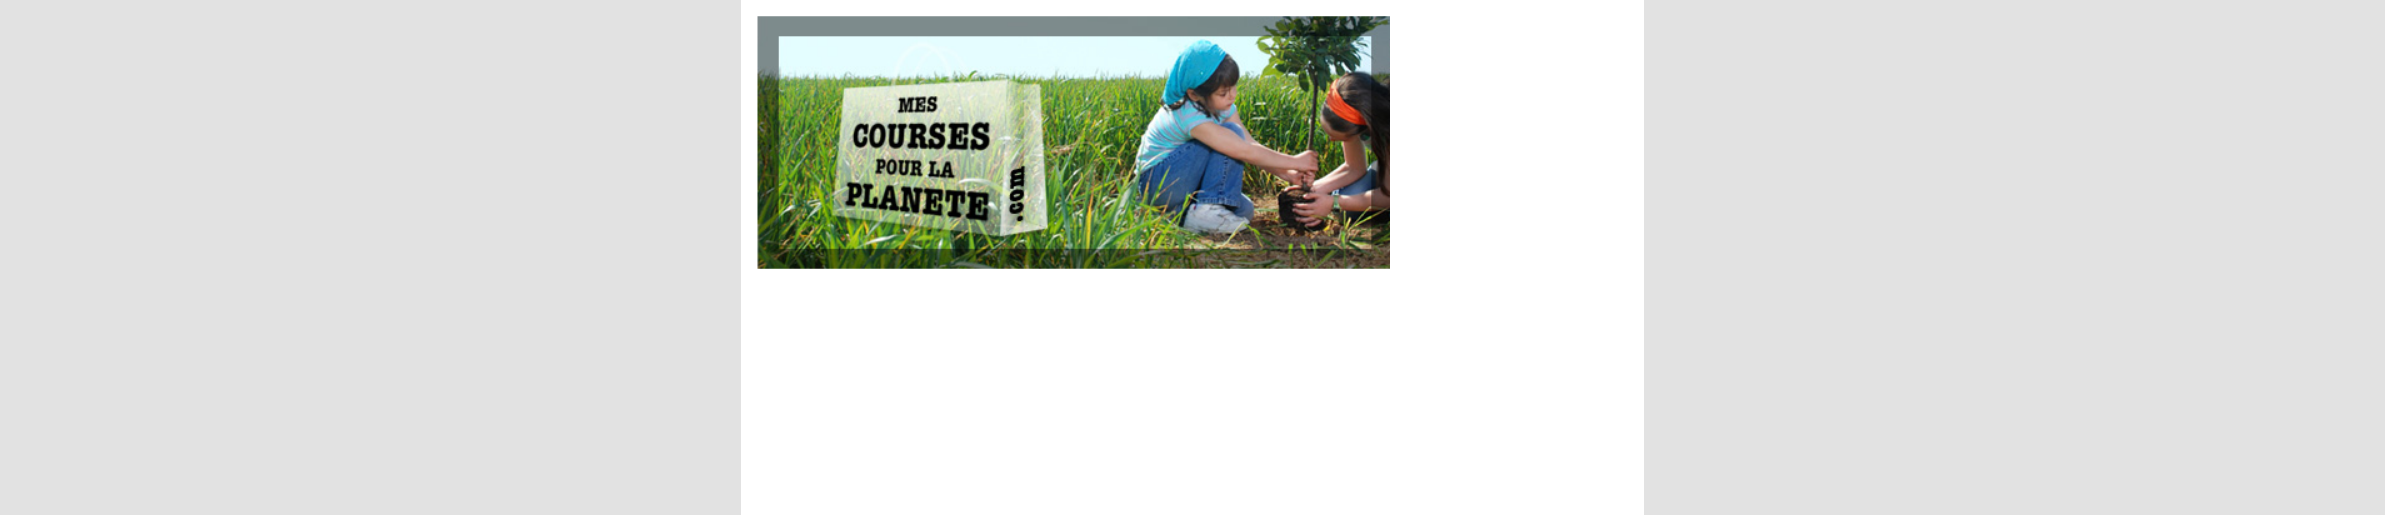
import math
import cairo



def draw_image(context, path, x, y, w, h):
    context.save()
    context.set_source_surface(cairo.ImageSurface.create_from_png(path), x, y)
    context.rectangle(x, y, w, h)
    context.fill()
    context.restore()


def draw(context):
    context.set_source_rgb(226 / 255, 226 / 255, 226 / 255)
    context.paint()
    context.set_source_rgb(1, 1, 1)
    context.rectangle(741, 0, 903, 515)
    context.fill()
    draw_image(context, "images/1.png", 757, 16, 633, 253)


surface = cairo.ImageSurface(cairo.Format.RGB24, 2385, 515)
context = cairo.Context(surface)
options = cairo.FontOptions()
options.set_hint_metrics(cairo.HintMetrics.OFF)
options.set_hint_style(cairo.HintStyle.NONE)
context.set_font_options(options)
context.set_miter_limit(4)
draw(context)
surface.write_to_png("out.png")
